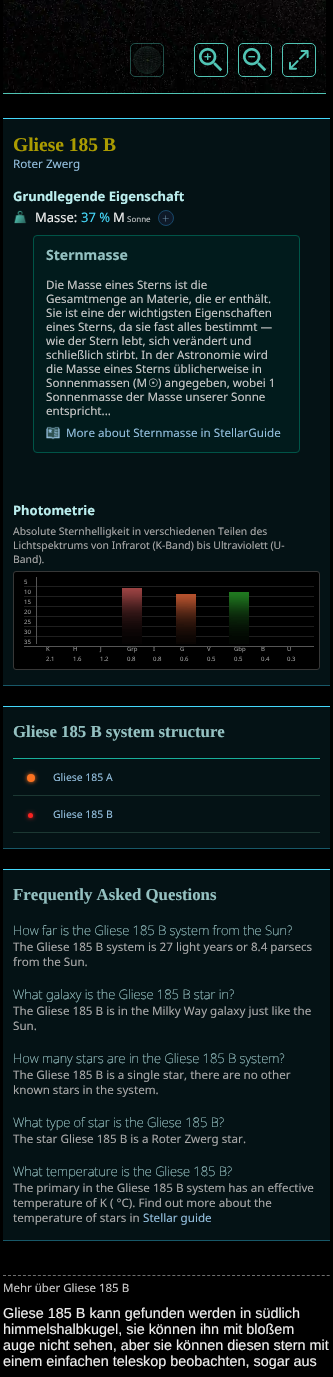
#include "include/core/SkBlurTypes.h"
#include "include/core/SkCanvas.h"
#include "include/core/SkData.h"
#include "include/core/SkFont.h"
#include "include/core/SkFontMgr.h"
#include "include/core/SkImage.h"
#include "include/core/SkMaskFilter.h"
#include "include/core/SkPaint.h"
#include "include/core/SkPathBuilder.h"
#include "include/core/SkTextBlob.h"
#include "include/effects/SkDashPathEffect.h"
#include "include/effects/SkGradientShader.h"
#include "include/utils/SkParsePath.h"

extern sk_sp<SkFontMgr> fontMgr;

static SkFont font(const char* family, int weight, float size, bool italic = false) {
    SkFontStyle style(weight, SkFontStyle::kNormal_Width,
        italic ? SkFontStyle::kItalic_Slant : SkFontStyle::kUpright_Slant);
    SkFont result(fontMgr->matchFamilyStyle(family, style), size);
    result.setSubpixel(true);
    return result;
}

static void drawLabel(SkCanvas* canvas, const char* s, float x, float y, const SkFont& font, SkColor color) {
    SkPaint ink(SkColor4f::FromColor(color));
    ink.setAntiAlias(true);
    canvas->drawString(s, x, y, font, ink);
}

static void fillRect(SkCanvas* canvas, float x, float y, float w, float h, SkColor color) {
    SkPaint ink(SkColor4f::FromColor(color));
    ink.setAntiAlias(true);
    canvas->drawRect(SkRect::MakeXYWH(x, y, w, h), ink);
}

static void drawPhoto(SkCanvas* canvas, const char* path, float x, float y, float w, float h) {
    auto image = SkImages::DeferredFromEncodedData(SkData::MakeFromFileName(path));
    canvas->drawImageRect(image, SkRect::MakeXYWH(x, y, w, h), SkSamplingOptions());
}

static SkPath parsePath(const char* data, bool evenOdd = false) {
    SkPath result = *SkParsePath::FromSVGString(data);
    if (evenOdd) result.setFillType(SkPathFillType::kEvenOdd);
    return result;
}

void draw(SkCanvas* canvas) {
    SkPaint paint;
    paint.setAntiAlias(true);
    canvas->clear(0xFF000000);
    drawPhoto(canvas, "assets/img1.png", 3, 0, 323, 93);
    fillRect(canvas, 3, 93, 323, 1, 0xFF51C4B4);
    fillRect(canvas, 3, 119, 327, 566, 0xFF041215);
    fillRect(canvas, 3, 118, 327, 1, 0xFF45D8FB);
    fillRect(canvas, 3, 685, 327, 1, 0xFF185868);
    SkFont font1 = font("Liberation Serif", 700, 19.5f);
    drawLabel(canvas, "Gliese 185 B", 13, 151, font1, 0xFFAB9C01);
    SkFont font2 = font("Noto Sans", 400, 11.65f);
    drawLabel(canvas, "Roter Zwerg", 13, 168, font2, 0xFF93BFDE);
    SkFont font3 = font("Noto Sans", 700, 13);
    drawLabel(canvas, "Grundlegende Eigenschaft", 13, 201, font3, 0xFFBBEEEE);
    drawPhoto(canvas, "assets/img2.png", 14, 210, 13, 14);
    SkFont font4 = font("Noto Sans", 400, 13);
    drawLabel(canvas, "Masse:", 35, 222, font4, 0xFFEEEEEE);
    drawLabel(canvas, "37 %", 81, 222, font4, 0xFF45D8FB);
    drawLabel(canvas, "M", 113, 222, font4, 0xFFEEEEEE);
    SkFont font5 = font("Noto Sans", 400, 8);
    drawLabel(canvas, "Sonne", 127, 222, font5, 0xFFBFC2C3);
    paint.setColor(0xFF0E1928);
    canvas->drawCircle(166, 218, 7.5f, paint);
    paint.setStroke(true);
    paint.setStrokeWidth(1);
    paint.setColor(0xFF164668);
    canvas->drawCircle(166, 218, 7.5f, paint);
    SkFont font6 = font("Noto Sans", 100, 13);
    drawLabel(canvas, "+", 162, 223, font6, 0xFF93BFDE);
    paint.setStroke(false);
    paint.setColor(0xFF011B1C);
    canvas->drawRoundRect(SkRect::MakeXYWH(33.5f, 235.5f, 266, 217), 3.5f, 3.5f, paint);
    paint.setStroke(true);
    paint.setColor(0xFF005447);
    canvas->drawRoundRect(SkRect::MakeXYWH(33.5f, 235.5f, 266, 217), 3.5f, 3.5f, paint);
    SkFont font7 = font("Noto Sans", 700, 14);
    drawLabel(canvas, "Sternmasse", 46, 260, font7, 0xFF94C1C1);
    drawLabel(canvas, "Die Masse eines Sterns ist die", 46, 289, font2, 0xFFC9C9C9);
    drawLabel(canvas, "Gesamtmenge an Materie, die er enthält.", 46, 303, font2, 0xFFC9C9C9);
    drawLabel(canvas, "Sie ist eine der wichtigsten Eigenschaften", 46, 317, font2, 0xFFC9C9C9);
    drawLabel(canvas, "eines Sterns, da sie fast alles bestimmt —", 46, 331, font2, 0xFFC9C9C9);
    drawLabel(canvas, "wie der Stern lebt, sich verändert und", 46, 345, font2, 0xFFC9C9C9);
    drawLabel(canvas, "schließlich stirbt. In der Astronomie wird", 46, 359, font2, 0xFFC9C9C9);
    drawLabel(canvas, "die Masse eines Sterns üblicherweise in", 46, 373, font2, 0xFFC9C9C9);
    drawLabel(canvas, "Sonnenmassen (M", 46, 387, font2, 0xFFC9C9C9);
    SkFont font8 = font("DejaVu Sans", 400, 11.65f);
    drawLabel(canvas, "☉", 148, 387, font8, 0xFFC9C9C9);
    drawLabel(canvas, ") angegeben, wobei 1", 158, 387, font2, 0xFFC9C9C9);
    drawLabel(canvas, "Sonnenmasse der Masse unserer Sonne", 46, 401, font2, 0xFFC9C9C9);
    drawLabel(canvas, "entspricht...", 46, 415, font2, 0xFFC9C9C9);
    drawPhoto(canvas, "assets/img3.png", 46, 426, 14, 14);
    drawLabel(canvas, "More about Sternmasse in StellarGuide", 66, 437, font2, 0xFF93BFDE);
    drawLabel(canvas, "Photometrie", 13, 515, font3, 0xFFBBEEEE);
    SkFont font9 = font("Noto Sans", 400, 10.4f);
    drawLabel(canvas, "Absolute Sternhelligkeit in verschiedenen Teilen des", 13, 535, font9, 0xFFA8A8A8);
    drawLabel(canvas, "Lichtspektrums von Infrarot (K-Band) bis Ultraviolett (U-", 13, 549, font9, 0xFFA8A8A8);
    drawLabel(canvas, "Band).", 13, 563, font9, 0xFFA8A8A8);
    paint.setStroke(false);
    paint.setColor(0xFF000000);
    canvas->drawRoundRect(SkRect::MakeXYWH(13.5f, 571.5f, 306, 98), 2.5f, 2.5f, paint);
    paint.setStroke(true);
    paint.setColor(0xFF373737);
    canvas->drawRoundRect(SkRect::MakeXYWH(13.5f, 571.5f, 306, 98), 2.5f, 2.5f, paint);
    fillRect(canvas, 24, 586, 290, 1, 0xFF1F1F1F);
    SkFont font10 = font("Noto Sans", 400, 6);
    drawLabel(canvas, "5", 24, 584, font10, 0xFF999999);
    fillRect(canvas, 24, 596, 290, 1, 0xFF1F1F1F);
    drawLabel(canvas, "10", 24, 594, font10, 0xFF999999);
    fillRect(canvas, 24, 606, 290, 1, 0xFF1F1F1F);
    drawLabel(canvas, "15", 24, 604, font10, 0xFF999999);
    fillRect(canvas, 24, 616, 290, 1, 0xFF1F1F1F);
    drawLabel(canvas, "20", 24, 614, font10, 0xFF999999);
    fillRect(canvas, 24, 626, 290, 1, 0xFF1F1F1F);
    drawLabel(canvas, "25", 24, 624, font10, 0xFF999999);
    fillRect(canvas, 24, 636, 290, 1, 0xFF1F1F1F);
    drawLabel(canvas, "30", 24, 634, font10, 0xFF999999);
    drawLabel(canvas, "K", 46, 651, font10, 0xFF999999);
    drawLabel(canvas, "H", 73, 651, font10, 0xFF999999);
    drawLabel(canvas, "J", 100, 651, font10, 0xFF999999);
    drawLabel(canvas, "Grp", 127, 651, font10, 0xFF999999);
    drawLabel(canvas, "I", 153, 651, font10, 0xFF999999);
    drawLabel(canvas, "G", 180, 651, font10, 0xFF999999);
    drawLabel(canvas, "V", 207, 651, font10, 0xFF999999);
    drawLabel(canvas, "Gbp", 234, 651, font10, 0xFF999999);
    drawLabel(canvas, "B", 261, 651, font10, 0xFF999999);
    drawLabel(canvas, "U", 287, 651, font10, 0xFF999999);
    fillRect(canvas, 24, 646, 290, 1, 0xFF555555);
    drawLabel(canvas, "35", 24, 644, font10, 0xFF999999);
    fillRect(canvas, 36, 577, 1, 67, 0xFF555555);
    fillRect(canvas, 122, 588, 20, 56, 0xFFC05252);
    drawPhoto(canvas, "assets/img4.png", 122, 588, 20, 56);
    fillRect(canvas, 176, 594, 20, 50, 0xFFE16538);
    drawPhoto(canvas, "assets/img5.png", 176, 594, 20, 50);
    fillRect(canvas, 229, 592, 20, 52, 0xFF279727);
    drawPhoto(canvas, "assets/img6.png", 229, 592, 20, 52);
    drawLabel(canvas, "2.1", 46, 661, font10, 0xFF999999);
    drawLabel(canvas, "1.6", 73, 661, font10, 0xFF999999);
    drawLabel(canvas, "1.2", 100, 661, font10, 0xFF999999);
    drawLabel(canvas, "0.8", 127, 661, font10, 0xFF999999);
    drawLabel(canvas, "0.8", 153, 661, font10, 0xFF999999);
    drawLabel(canvas, "0.6", 180, 661, font10, 0xFF999999);
    drawLabel(canvas, "0.5", 207, 661, font10, 0xFF999999);
    drawLabel(canvas, "0.5", 234, 661, font10, 0xFF999999);
    drawLabel(canvas, "0.4", 261, 661, font10, 0xFF999999);
    drawLabel(canvas, "0.3", 287, 661, font10, 0xFF999999);
    fillRect(canvas, 3, 707, 327, 141, 0xFF041215);
    fillRect(canvas, 3, 706, 327, 1, 0xFF45D8FB);
    fillRect(canvas, 3, 848, 327, 1, 0xFF185868);
    SkFont font11 = font("Liberation Serif", 700, 16.8f);
    drawLabel(canvas, "Gliese 185 B system structure", 13, 737, font11, 0xFF94C1C1);
    fillRect(canvas, 13, 758, 307, 1, 0xFF19AF9B);
    fillRect(canvas, 13, 795, 307, 1, 0xFF1C3833);
    paint.setStroke(false);
    paint.setColor(0xFFFB7220);
    canvas->drawCircle(31, 778, 4, paint);
    paint.setMaskFilter(SkMaskFilter::MakeBlur(kNormal_SkBlurStyle, 2));
    canvas->drawRoundRect(SkRect::MakeXYWH(27, 774, 8, 8), 4, 4, paint);
    paint.setMaskFilter(nullptr);
    drawLabel(canvas, "Gliese 185 A", 53, 781, font9, 0xFF93BFDE);
    fillRect(canvas, 13, 832, 307, 1, 0xFF1C3833);
    paint.setColor(0xFFFB2220);
    canvas->drawCircle(30.5f, 815.5f, 2.5f, paint);
    paint.setMaskFilter(SkMaskFilter::MakeBlur(kNormal_SkBlurStyle, 2));
    canvas->drawRoundRect(SkRect::MakeXYWH(28, 813, 5, 5), 2.5f, 2.5f, paint);
    paint.setMaskFilter(nullptr);
    drawLabel(canvas, "Gliese 185 B", 53, 818, font9, 0xFF93BFDE);
    fillRect(canvas, 3, 870, 327, 370, 0xFF041215);
    fillRect(canvas, 3, 869, 327, 1, 0xFF45D8FB);
    fillRect(canvas, 3, 1240, 327, 1, 0xFF185868);
    drawLabel(canvas, "Frequently Asked Questions", 13, 900, font11, 0xFF94C1C1);
    drawLabel(canvas, "How far is the Gliese 185 B system from the Sun?", 13, 935, font6, 0xFFBBEEEE);
    drawLabel(canvas, "The Gliese 185 B system is 27 light years or 8.4 parsecs", 13, 951, font2, 0xFFA8A8A8);
    drawLabel(canvas, "from the Sun.", 13, 966, font2, 0xFFA8A8A8);
    drawLabel(canvas, "What galaxy is the Gliese 185 B star in?", 13, 999, font6, 0xFFBBEEEE);
    drawLabel(canvas, "The Gliese 185 B is in the Milky Way galaxy just like the", 13, 1015, font2, 0xFFA8A8A8);
    drawLabel(canvas, "Sun.", 13, 1030, font2, 0xFFA8A8A8);
    drawLabel(canvas, "How many stars are in the Gliese 185 B system?", 13, 1063, font6, 0xFFBBEEEE);
    drawLabel(canvas, "The Gliese 185 B is a single star, there are no other", 13, 1079, font2, 0xFFA8A8A8);
    drawLabel(canvas, "known stars in the system.", 13, 1094, font2, 0xFFA8A8A8);
    drawLabel(canvas, "What type of star is the Gliese 185 B?", 13, 1127, font6, 0xFFBBEEEE);
    drawLabel(canvas, "The star Gliese 185 B is a Roter Zwerg star.", 13, 1143, font2, 0xFFA8A8A8);
    drawLabel(canvas, "What temperature is the Gliese 185 B?", 13, 1176, font6, 0xFFBBEEEE);
    drawLabel(canvas, "The primary in the Gliese 185 B system has an effective", 13, 1192, font2, 0xFFA8A8A8);
    drawLabel(canvas, "temperature of K ( °C). Find out more about the", 13, 1207, font2, 0xFFA8A8A8);
    drawLabel(canvas, "temperature of stars in", 13, 1222, font2, 0xFFA8A8A8);
    drawLabel(canvas, "Stellar guide", 143, 1222, font2, 0xFF93BFDE);
    paint.setStroke(true);
    paint.setColor(0xFF6F6F6F);
    paint.setPathEffect(SkDashPathEffect::Make({{3, 1.98f}}, 0));
    canvas->drawPath(parsePath("M3 1275.5H330"), paint);
    paint.setPathEffect(nullptr);
    SkFont font12 = font("Noto Sans", 400, 11.5f);
    drawLabel(canvas, "Mehr über Gliese 185 B", 3, 1292, font12, 0xFFC9C9C9);
    SkFont font13 = font("Liberation Sans", 400, 14.4f);
    drawLabel(canvas, "Gliese 185 B kann gefunden werden in südlich", 3, 1318, font13, 0xFFEEEEEE);
    drawLabel(canvas, "himmelshalbkugel, sie können ihn mit bloßem", 3, 1334, font13, 0xFFEEEEEE);
    drawLabel(canvas, "auge nicht sehen, aber sie können diesen stern mit", 3, 1350, font13, 0xFFEEEEEE);
    drawLabel(canvas, "einem einfachen teleskop beobachten, sogar aus", 3, 1366, font13, 0xFFEEEEEE);
}
